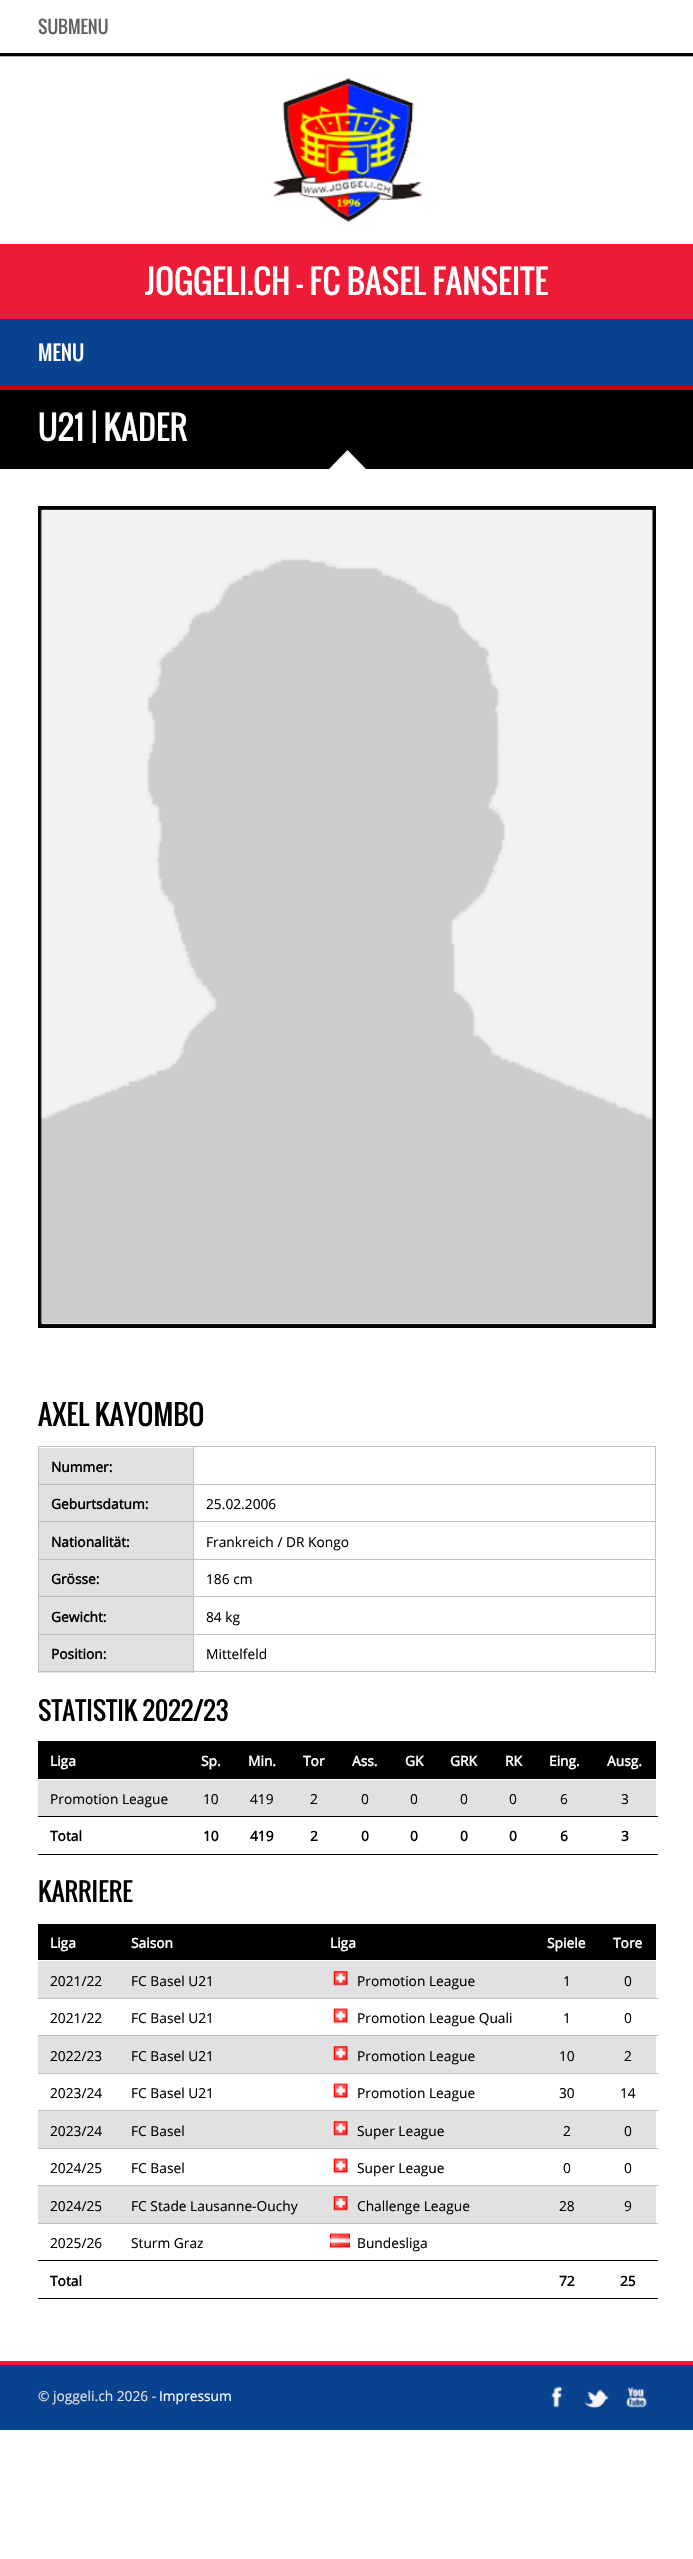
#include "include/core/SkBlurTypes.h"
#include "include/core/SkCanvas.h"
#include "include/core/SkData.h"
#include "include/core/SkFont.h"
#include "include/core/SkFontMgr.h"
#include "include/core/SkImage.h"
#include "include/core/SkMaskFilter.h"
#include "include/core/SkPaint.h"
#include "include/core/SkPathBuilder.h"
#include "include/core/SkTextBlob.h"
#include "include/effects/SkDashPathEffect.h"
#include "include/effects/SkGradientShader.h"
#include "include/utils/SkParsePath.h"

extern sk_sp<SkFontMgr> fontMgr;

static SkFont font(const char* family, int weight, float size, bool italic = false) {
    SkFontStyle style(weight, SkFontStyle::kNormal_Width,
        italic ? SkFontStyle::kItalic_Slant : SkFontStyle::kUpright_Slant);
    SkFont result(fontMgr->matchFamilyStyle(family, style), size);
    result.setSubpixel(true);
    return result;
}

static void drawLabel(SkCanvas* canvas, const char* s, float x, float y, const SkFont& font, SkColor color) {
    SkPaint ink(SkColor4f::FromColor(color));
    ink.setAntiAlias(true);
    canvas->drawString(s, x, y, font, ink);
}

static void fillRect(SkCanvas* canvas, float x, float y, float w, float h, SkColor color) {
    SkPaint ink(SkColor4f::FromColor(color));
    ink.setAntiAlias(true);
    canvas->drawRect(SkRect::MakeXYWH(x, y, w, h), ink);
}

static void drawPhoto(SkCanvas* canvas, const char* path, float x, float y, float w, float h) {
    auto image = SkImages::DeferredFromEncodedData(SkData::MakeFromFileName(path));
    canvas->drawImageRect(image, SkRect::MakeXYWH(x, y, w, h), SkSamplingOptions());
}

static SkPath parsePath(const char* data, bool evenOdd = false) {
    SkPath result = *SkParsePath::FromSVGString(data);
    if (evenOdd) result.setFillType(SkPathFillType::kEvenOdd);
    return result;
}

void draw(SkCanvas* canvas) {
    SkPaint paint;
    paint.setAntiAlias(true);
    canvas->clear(0xFFFFFFFF);
    fillRect(canvas, 0, 53, 693, 3, 0xFF000000);
    fillRect(canvas, 0, 56, 693, 1, 0xFFB3B3B3);
    SkFont font1 = font("Oswald", 400, 17.5f);
    drawLabel(canvas, "SUBMENU", 38, 34, font1, 0xFF616161);
    drawPhoto(canvas, "assets/img1.png", 272, 78, 151, 144);
    fillRect(canvas, 0, 244, 693, 75, 0xFFED1B35);
    SkFont font2 = font("Oswald", 400, 32.5f);
    drawLabel(canvas, "JOGGELI.CH - FC BASEL FANSEITE", 145, 295, font2, 0xFFFFFFFF);
    fillRect(canvas, 0, 319, 693, 67, 0xFF09428F);
    fillRect(canvas, 0, 386, 693, 4, 0xFFCC0000);
    SkFont font3 = font("Oswald", 400, 20);
    drawLabel(canvas, "MENU", 38, 361, font3, 0xFFFFFFFF);
    fillRect(canvas, 0, 390, 693, 79, 0xFF000000);
    drawLabel(canvas, "U21 | KADER", 38, 441, font2, 0xFFFFFFFF);
    paint.setColor(0xFFFFFFFF);
    canvas->drawPath(parsePath("M366 469H329L347.5 450Z"), paint);
    paint.setStroke(true);
    paint.setStrokeWidth(4);
    paint.setColor(0xFF000000);
    canvas->drawRect(SkRect::MakeXYWH(40, 508, 614, 818), paint);
    drawPhoto(canvas, "assets/img2.png", 40, 509, 613, 816);
    SkFont font4 = font("Oswald", 400, 27.5f);
    drawLabel(canvas, "AXEL KAYOMBO", 38, 1426, font4, 0xFF000000);
    fillRect(canvas, 39, 1448, 154, 36, 0xFFE1E1E1);
    fillRect(canvas, 193, 1446, 463, 1, 0xFFC0C0C0);
    fillRect(canvas, 193, 1484, 463, 1, 0xFFC0C0C0);
    fillRect(canvas, 39, 1485, 154, 74, 0xFFE1E1E1);
    fillRect(canvas, 193, 1521, 463, 1, 0xFFC0C0C0);
    fillRect(canvas, 193, 1559, 463, 1, 0xFFC0C0C0);
    fillRect(canvas, 39, 1560, 154, 74, 0xFFE1E1E1);
    fillRect(canvas, 193, 1596, 463, 1, 0xFFC0C0C0);
    fillRect(canvas, 193, 1634, 463, 1, 0xFFC0C0C0);
    fillRect(canvas, 655, 1634, 1, 39, 0xFFC0C0C0);
    fillRect(canvas, 193, 1671, 463, 1, 0xFFC0C0C0);
    fillRect(canvas, 193, 1634, 1, 39, 0xFFC0C0C0);
    fillRect(canvas, 38, 1634, 156, 1, 0xFFC0C0C0);
    fillRect(canvas, 193, 1596, 1, 39, 0xFFC0C0C0);
    fillRect(canvas, 38, 1596, 156, 1, 0xFFC0C0C0);
    fillRect(canvas, 193, 1559, 1, 39, 0xFFC0C0C0);
    fillRect(canvas, 38, 1559, 156, 1, 0xFFC0C0C0);
    fillRect(canvas, 193, 1521, 1, 39, 0xFFC0C0C0);
    fillRect(canvas, 38, 1521, 156, 1, 0xFFC0C0C0);
    fillRect(canvas, 193, 1484, 1, 39, 0xFFC0C0C0);
    fillRect(canvas, 38, 1484, 156, 1, 0xFFC0C0C0);
    fillRect(canvas, 193, 1446, 1, 39, 0xFFC0C0C0);
    fillRect(canvas, 38, 1446, 156, 1, 0xFFC0C0C0);
    fillRect(canvas, 39, 1635, 154, 38, 0xFFE1E1E1);
    fillRect(canvas, 38, 1671, 156, 1, 0xFFC0C0C0);
    fillRect(canvas, 38, 1634, 1, 39, 0xFFC0C0C0);
    fillRect(canvas, 38, 1596, 1, 39, 0xFFC0C0C0);
    fillRect(canvas, 38, 1559, 1, 39, 0xFFC0C0C0);
    fillRect(canvas, 38, 1521, 1, 39, 0xFFC0C0C0);
    fillRect(canvas, 38, 1484, 1, 39, 0xFFC0C0C0);
    fillRect(canvas, 38, 1446, 1, 39, 0xFFC0C0C0);
    SkFont font5 = font("Open Sans", 700, 13.75f);
    drawLabel(canvas, "Nummer:", 51, 1472, font5, 0xFF000000);
    fillRect(canvas, 655, 1596, 1, 39, 0xFFC0C0C0);
    fillRect(canvas, 655, 1559, 1, 39, 0xFFC0C0C0);
    fillRect(canvas, 655, 1521, 1, 39, 0xFFC0C0C0);
    fillRect(canvas, 655, 1484, 1, 39, 0xFFC0C0C0);
    fillRect(canvas, 655, 1446, 1, 39, 0xFFC0C0C0);
    drawLabel(canvas, "Geburtsdatum:", 51, 1509, font5, 0xFF000000);
    SkFont font6 = font("Open Sans", 400, 13.75f);
    drawLabel(canvas, "25.02.2006", 206, 1509, font6, 0xFF000000);
    drawLabel(canvas, "Nationalität:", 51, 1547, font5, 0xFF000000);
    drawLabel(canvas, "Frankreich / DR Kongo", 206, 1547, font6, 0xFF000000);
    drawLabel(canvas, "Grösse:", 51, 1584, font5, 0xFF000000);
    drawLabel(canvas, "186 cm", 206, 1584, font6, 0xFF000000);
    drawLabel(canvas, "Gewicht:", 51, 1622, font5, 0xFF000000);
    drawLabel(canvas, "84 kg", 206, 1622, font6, 0xFF000000);
    drawLabel(canvas, "Position:", 51, 1659, font5, 0xFF000000);
    drawLabel(canvas, "Mittelfeld", 206, 1659, font6, 0xFF000000);
    SkFont font7 = font("Oswald", 400, 25);
    drawLabel(canvas, "STATISTIK 2022/23", 38, 1721, font7, 0xFF000000);
    fillRect(canvas, 38, 1741, 618, 38, 0xFF000000);
    drawLabel(canvas, "Liga", 50, 1766, font5, 0xFFFFFFFF);
    drawLabel(canvas, "Sp.", 201, 1766, font5, 0xFFFFFFFF);
    drawLabel(canvas, "Min.", 248, 1766, font5, 0xFFFFFFFF);
    drawLabel(canvas, "Tor", 303, 1766, font5, 0xFFFFFFFF);
    drawLabel(canvas, "Ass.", 352, 1766, font5, 0xFFFFFFFF);
    drawLabel(canvas, "GK", 405, 1766, font5, 0xFFFFFFFF);
    drawLabel(canvas, "GRK", 450, 1766, font5, 0xFFFFFFFF);
    drawLabel(canvas, "RK", 505, 1766, font5, 0xFFFFFFFF);
    drawLabel(canvas, "Eing.", 549, 1766, font5, 0xFFFFFFFF);
    drawLabel(canvas, "Ausg.", 607, 1766, font5, 0xFFFFFFFF);
    fillRect(canvas, 38, 1780, 618, 36, 0xFFE1E1E1);
    drawLabel(canvas, "Promotion League", 50, 1804, font6, 0xFF000000);
    drawLabel(canvas, "10", 203, 1804, font6, 0xFF000000);
    drawLabel(canvas, "419", 250, 1804, font6, 0xFF000000);
    drawLabel(canvas, "2", 310, 1804, font6, 0xFF000000);
    drawLabel(canvas, "0", 361, 1804, font6, 0xFF000000);
    drawLabel(canvas, "0", 410, 1804, font6, 0xFF000000);
    drawLabel(canvas, "0", 460, 1804, font6, 0xFF000000);
    drawLabel(canvas, "0", 509, 1804, font6, 0xFF000000);
    drawLabel(canvas, "6", 560, 1804, font6, 0xFF000000);
    drawLabel(canvas, "3", 621, 1804, font6, 0xFF000000);
    drawLabel(canvas, "Total", 50, 1841, font5, 0xFF000000);
    drawLabel(canvas, "10", 203, 1841, font5, 0xFF000000);
    drawLabel(canvas, "419", 250, 1841, font5, 0xFF000000);
    drawLabel(canvas, "2", 310, 1841, font5, 0xFF000000);
    drawLabel(canvas, "0", 361, 1841, font5, 0xFF000000);
    drawLabel(canvas, "0", 410, 1841, font5, 0xFF000000);
    drawLabel(canvas, "0", 460, 1841, font5, 0xFF000000);
    drawLabel(canvas, "0", 509, 1841, font5, 0xFF000000);
    drawLabel(canvas, "6", 560, 1841, font5, 0xFF000000);
    fillRect(canvas, 38, 1816, 620, 1, 0xFF000000);
    fillRect(canvas, 38, 1854, 620, 1, 0xFF000000);
    drawLabel(canvas, "3", 621, 1841, font5, 0xFF000000);
    drawLabel(canvas, "KARRIERE", 38, 1902, font7, 0xFF000000);
    fillRect(canvas, 38, 1924, 618, 36, 0xFF000000);
    drawLabel(canvas, "Liga", 50, 1948, font5, 0xFFFFFFFF);
    drawLabel(canvas, "Saison", 131, 1948, font5, 0xFFFFFFFF);
    drawLabel(canvas, "Liga", 330, 1948, font5, 0xFFFFFFFF);
    drawLabel(canvas, "Spiele", 547, 1948, font5, 0xFFFFFFFF);
    drawLabel(canvas, "Tore", 613, 1948, font5, 0xFFFFFFFF);
    fillRect(canvas, 38, 1961, 618, 37, 0xFFE1E1E1);
    drawLabel(canvas, "2021/22", 50, 1986, font6, 0xFF000000);
    drawLabel(canvas, "FC Basel U21", 131, 1986, font6, 0xFF000000);
    drawPhoto(canvas, "assets/img3.png", 333, 1971, 15, 15);
    drawLabel(canvas, "Promotion League", 357, 1986, font6, 0xFF000000);
    drawLabel(canvas, "1", 563, 1986, font6, 0xFF000000);
    fillRect(canvas, 38, 1998, 620, 1, 0xFFC0C0C0);
    drawLabel(canvas, "0", 624, 1986, font6, 0xFF000000);
    drawLabel(canvas, "2021/22", 50, 2023, font6, 0xFF000000);
    drawLabel(canvas, "FC Basel U21", 131, 2023, font6, 0xFF000000);
    drawPhoto(canvas, "assets/img4.png", 333, 2008, 15, 16);
    drawLabel(canvas, "Promotion League Quali", 357, 2023, font6, 0xFF000000);
    drawLabel(canvas, "1", 563, 2023, font6, 0xFF000000);
    fillRect(canvas, 38, 2035, 620, 1, 0xFFC0C0C0);
    drawLabel(canvas, "0", 624, 2023, font6, 0xFF000000);
    fillRect(canvas, 38, 2036, 618, 37, 0xFFE1E1E1);
    drawLabel(canvas, "2022/23", 50, 2061, font6, 0xFF000000);
    drawLabel(canvas, "FC Basel U21", 131, 2061, font6, 0xFF000000);
    drawPhoto(canvas, "assets/img5.png", 333, 2046, 15, 15);
    drawLabel(canvas, "Promotion League", 357, 2061, font6, 0xFF000000);
    drawLabel(canvas, "10", 559, 2061, font6, 0xFF000000);
    fillRect(canvas, 38, 2073, 620, 1, 0xFFC0C0C0);
    drawLabel(canvas, "2", 624, 2061, font6, 0xFF000000);
    drawLabel(canvas, "2023/24", 50, 2098, font6, 0xFF000000);
    drawLabel(canvas, "FC Basel U21", 131, 2098, font6, 0xFF000000);
    drawPhoto(canvas, "assets/img4.png", 333, 2083, 15, 16);
    drawLabel(canvas, "Promotion League", 357, 2098, font6, 0xFF000000);
    drawLabel(canvas, "30", 559, 2098, font6, 0xFF000000);
    fillRect(canvas, 38, 2110, 620, 1, 0xFFC0C0C0);
    drawLabel(canvas, "14", 620, 2098, font6, 0xFF000000);
    fillRect(canvas, 38, 2111, 618, 37, 0xFFE1E1E1);
    drawLabel(canvas, "2023/24", 50, 2136, font6, 0xFF000000);
    drawLabel(canvas, "FC Basel", 131, 2136, font6, 0xFF000000);
    drawPhoto(canvas, "assets/img5.png", 333, 2121, 15, 15);
    drawLabel(canvas, "Super League", 357, 2136, font6, 0xFF000000);
    drawLabel(canvas, "2", 563, 2136, font6, 0xFF000000);
    fillRect(canvas, 38, 2148, 620, 1, 0xFFC0C0C0);
    drawLabel(canvas, "0", 624, 2136, font6, 0xFF000000);
    drawLabel(canvas, "2024/25", 50, 2173, font6, 0xFF000000);
    drawLabel(canvas, "FC Basel", 131, 2173, font6, 0xFF000000);
    drawPhoto(canvas, "assets/img4.png", 333, 2158, 15, 16);
    drawLabel(canvas, "Super League", 357, 2173, font6, 0xFF000000);
    drawLabel(canvas, "0", 563, 2173, font6, 0xFF000000);
    fillRect(canvas, 38, 2185, 620, 1, 0xFFC0C0C0);
    drawLabel(canvas, "0", 624, 2173, font6, 0xFF000000);
    fillRect(canvas, 38, 2186, 618, 37, 0xFFE1E1E1);
    drawLabel(canvas, "2024/25", 50, 2211, font6, 0xFF000000);
    drawLabel(canvas, "FC Stade Lausanne-Ouchy", 131, 2211, font6, 0xFF000000);
    drawPhoto(canvas, "assets/img5.png", 333, 2196, 15, 15);
    drawLabel(canvas, "Challenge League", 357, 2211, font6, 0xFF000000);
    drawLabel(canvas, "28", 559, 2211, font6, 0xFF000000);
    fillRect(canvas, 38, 2223, 620, 1, 0xFFC0C0C0);
    drawLabel(canvas, "9", 624, 2211, font6, 0xFF000000);
    drawLabel(canvas, "2025/26", 50, 2248, font6, 0xFF000000);
    drawLabel(canvas, "Sturm Graz", 131, 2248, font6, 0xFF000000);
    drawPhoto(canvas, "assets/img6.png", 330, 2233, 20, 16);
    drawLabel(canvas, "Bundesliga", 357, 2248, font6, 0xFF000000);
    drawLabel(canvas, "Total", 50, 2286, font5, 0xFF000000);
    drawLabel(canvas, "72", 559, 2286, font5, 0xFF000000);
    fillRect(canvas, 38, 2260, 620, 1, 0xFF000000);
    fillRect(canvas, 38, 2298, 620, 1, 0xFF000000);
    drawLabel(canvas, "25", 620, 2286, font5, 0xFF000000);
    fillRect(canvas, 0, 2365, 693, 65, 0xFF09428F);
    fillRect(canvas, 0, 2361, 693, 4, 0xFFED1B35);
    drawLabel(canvas, "© joggeli.ch 2026 -", 38, 2401, font6, 0xFFE1E1E1);
    drawLabel(canvas, "Impressum", 159, 2401, font6, 0xFFFFFFFF);
    drawPhoto(canvas, "assets/img7.png", 551, 2386, 12, 23);
    drawPhoto(canvas, "assets/img8.png", 584, 2389, 25, 20);
    drawPhoto(canvas, "assets/img9.png", 626, 2387, 22, 22);
}
